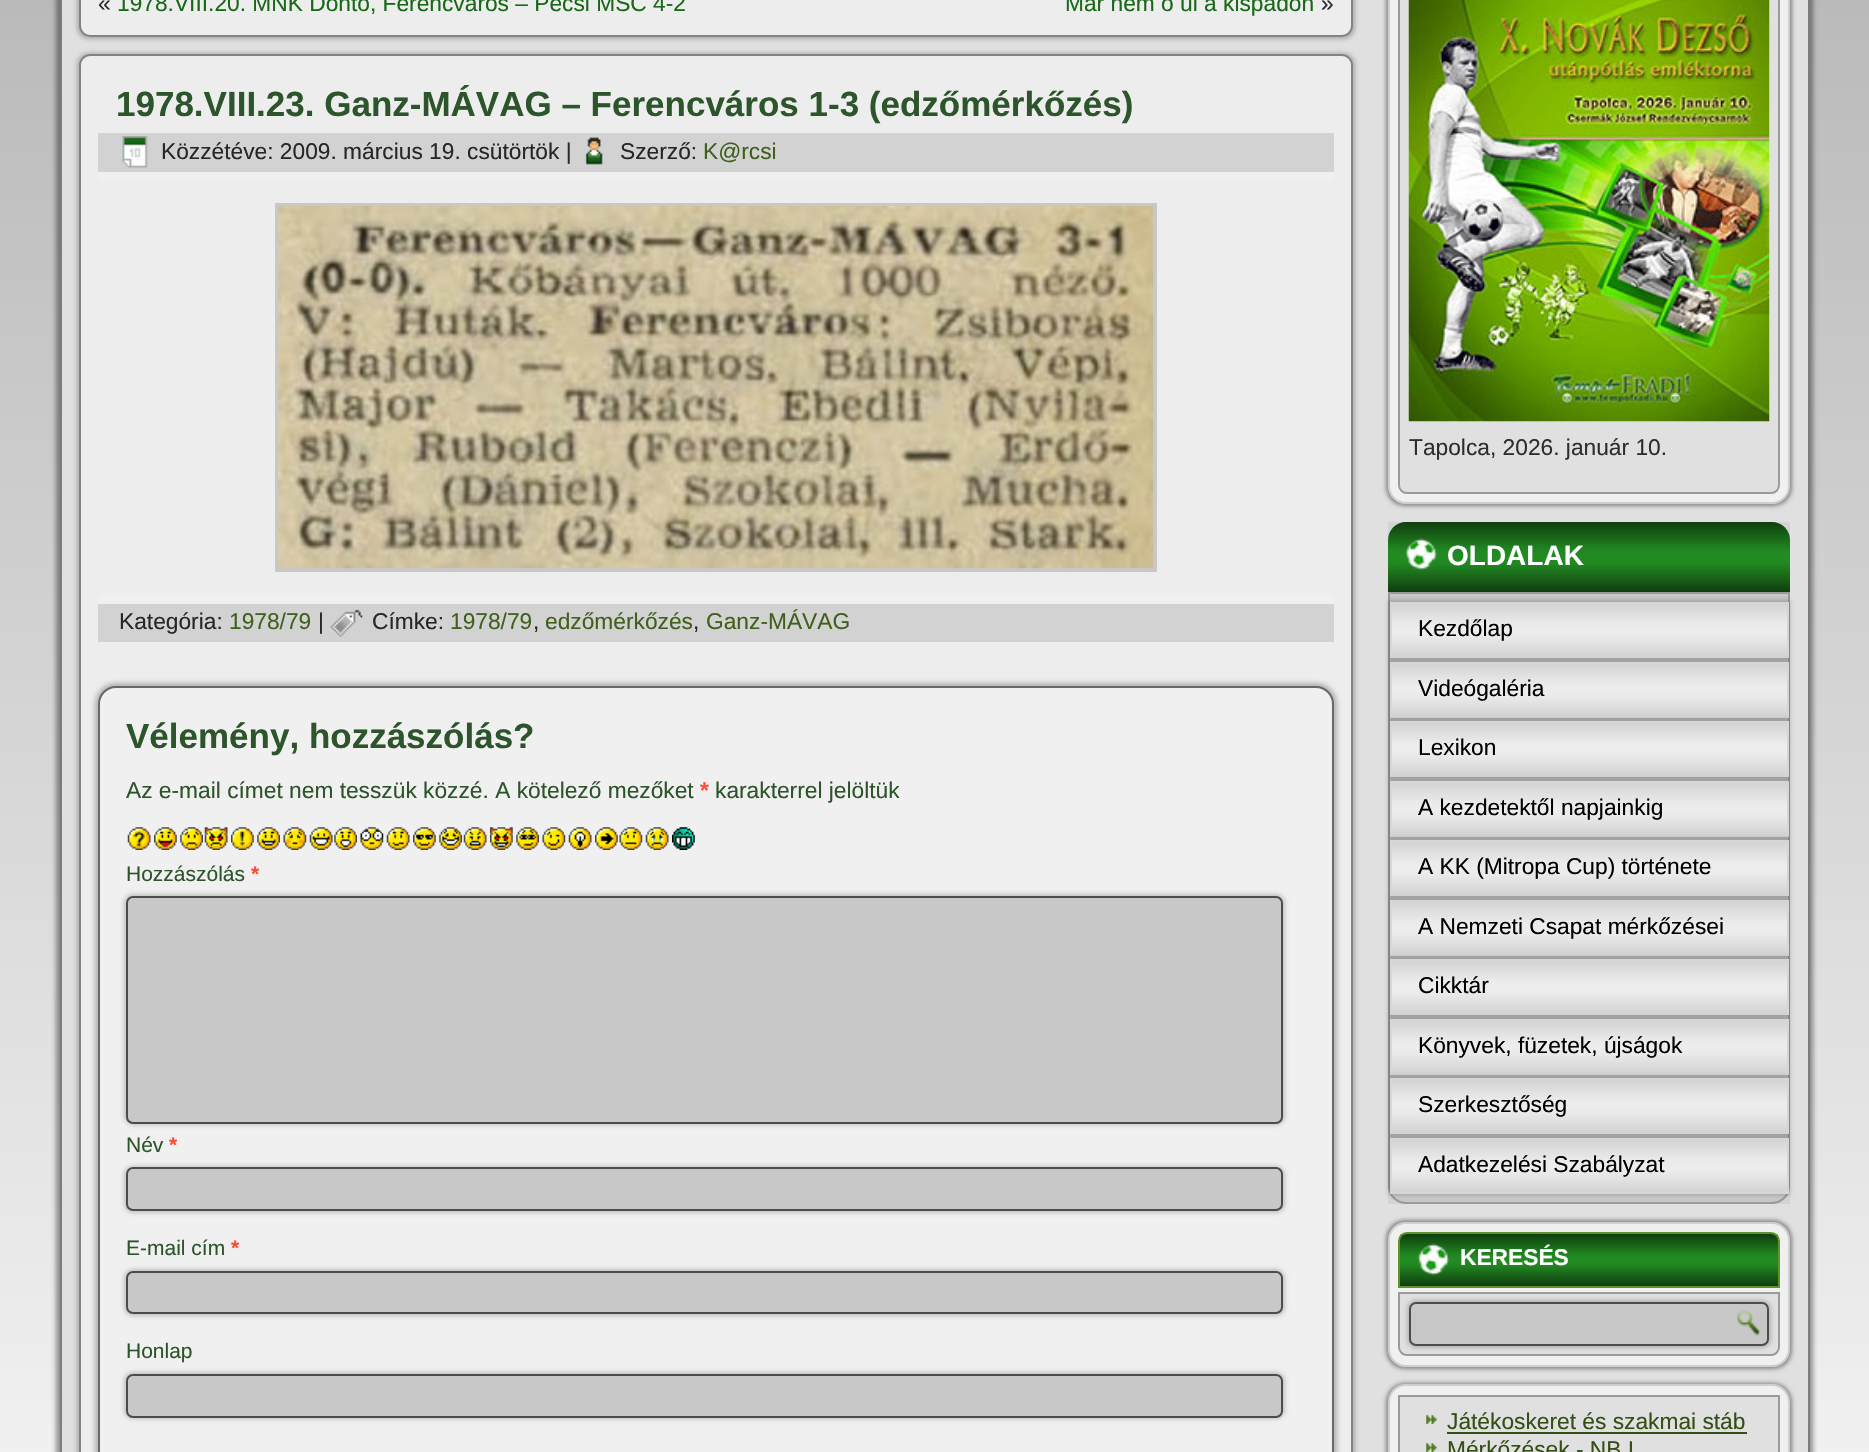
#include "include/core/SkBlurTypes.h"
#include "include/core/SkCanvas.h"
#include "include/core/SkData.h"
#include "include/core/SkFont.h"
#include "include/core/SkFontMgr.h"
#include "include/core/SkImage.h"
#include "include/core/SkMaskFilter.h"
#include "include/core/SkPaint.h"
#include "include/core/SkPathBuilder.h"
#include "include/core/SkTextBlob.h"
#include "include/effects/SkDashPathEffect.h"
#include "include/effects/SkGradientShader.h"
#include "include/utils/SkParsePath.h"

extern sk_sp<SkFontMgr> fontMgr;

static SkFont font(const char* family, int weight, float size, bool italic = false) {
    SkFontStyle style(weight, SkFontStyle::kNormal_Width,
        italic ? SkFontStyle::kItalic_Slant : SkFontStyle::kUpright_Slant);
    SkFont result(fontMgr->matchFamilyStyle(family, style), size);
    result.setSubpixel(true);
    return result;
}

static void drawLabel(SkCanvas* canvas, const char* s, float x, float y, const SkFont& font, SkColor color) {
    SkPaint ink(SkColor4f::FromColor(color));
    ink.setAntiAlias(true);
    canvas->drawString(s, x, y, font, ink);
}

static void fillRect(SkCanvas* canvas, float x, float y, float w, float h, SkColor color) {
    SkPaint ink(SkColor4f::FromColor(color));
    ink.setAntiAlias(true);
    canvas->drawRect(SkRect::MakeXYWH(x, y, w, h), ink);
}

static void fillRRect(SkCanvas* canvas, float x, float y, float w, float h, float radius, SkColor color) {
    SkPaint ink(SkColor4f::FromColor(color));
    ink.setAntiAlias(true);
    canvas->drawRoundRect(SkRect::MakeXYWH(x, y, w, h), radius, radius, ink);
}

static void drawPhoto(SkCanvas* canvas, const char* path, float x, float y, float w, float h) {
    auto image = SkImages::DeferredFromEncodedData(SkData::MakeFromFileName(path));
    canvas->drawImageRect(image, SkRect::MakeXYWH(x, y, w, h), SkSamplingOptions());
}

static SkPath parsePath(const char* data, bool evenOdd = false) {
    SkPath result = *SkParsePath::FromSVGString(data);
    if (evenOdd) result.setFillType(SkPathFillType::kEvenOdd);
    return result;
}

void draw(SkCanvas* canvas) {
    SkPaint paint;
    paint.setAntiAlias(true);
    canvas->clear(0xFFFFFFFF);
    {
        const SkColor colors[] = {0xFFBABABA, 0xFFFFFFFF};
        const float stops[] = {0, 1};
        const SkPoint ends[] = {{935, 0}, {935, 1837}};
        paint.setShader(SkGradientShader::MakeLinear(ends, colors, stops, 2, SkTileMode::kClamp));
        paint.setAlpha(255);
    }
    canvas->drawRect(SkRect::MakeXYWH(0, 0, 1869, 1452), paint);
    paint.setShader(nullptr);
    paint.setColor(0x66000000);
    paint.setMaskFilter(SkMaskFilter::MakeBlur(kNormal_SkBlurStyle, 2.5f));
    canvas->drawRoundRect(SkRect::MakeXYWH(56, -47, 1757, 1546), 39, 39, paint);
    paint.setMaskFilter(nullptr);
    paint.setColor(0xFFE0E0E0);
    canvas->drawRect(SkRect::MakeXYWH(61, -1, 1748, 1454), paint);
    paint.setStroke(true);
    paint.setStrokeWidth(2);
    paint.setColor(0xFF7F7B79);
    canvas->drawRect(SkRect::MakeXYWH(61, -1, 1748, 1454), paint);
    canvas->save();
    canvas->clipPath(parsePath("M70 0H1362V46H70ZM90-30H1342C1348-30 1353-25 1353-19V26C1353 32 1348 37 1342 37H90C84 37 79 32 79 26V-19C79-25 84-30 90-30Z", true), true);
    paint.setStroke(false);
    paint.setColor(0x3D000000);
    paint.setMaskFilter(SkMaskFilter::MakeBlur(kNormal_SkBlurStyle, 2));
    canvas->drawRoundRect(SkRect::MakeXYWH(77, -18, 1278, 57), 12, 12, paint);
    paint.setMaskFilter(nullptr);
    canvas->restore();
    fillRRect(canvas, 79, -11, 1274, 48, 11, 0xCCF0F0F0);
    paint.setStroke(true);
    paint.setColor(0xCC6A6665);
    canvas->drawRoundRect(SkRect::MakeXYWH(80, -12, 1272, 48), 10, 10, paint);
    SkFont font1 = font("Liberation Sans", 400, 22.75f);
    drawLabel(canvas, "«", 98, 11, font1, 0xFF2F2D2D);
    drawLabel(canvas, "1978.VIII.20. MNK Döntő, Ferencváros – Pécsi MSC 4-2", 117, 11, font1, 0xFF196818);
    drawLabel(canvas, "Már nem ő ül a kispadon", 1065, 11, font1, 0xFF196818);
    drawLabel(canvas, "»", 1321, 11, font1, 0xFF2F2D2D);
    canvas->save();
    canvas->clipPath(parsePath("M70 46H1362V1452H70ZM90 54H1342C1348 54 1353 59 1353 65V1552C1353 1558 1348 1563 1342 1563H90C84 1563 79 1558 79 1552V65C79 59 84 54 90 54Z", true), true);
    paint.setStroke(false);
    paint.setColor(0x3D000000);
    paint.setMaskFilter(SkMaskFilter::MakeBlur(kNormal_SkBlurStyle, 2));
    canvas->drawRoundRect(SkRect::MakeXYWH(77, 53, 1278, 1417), 12, 12, paint);
    paint.setMaskFilter(nullptr);
    canvas->restore();
    fillRRect(canvas, 79, 54, 1274, 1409, 11, 0xCCF0F0F0);
    paint.setStroke(true);
    paint.setColor(0xCC6A6665);
    canvas->drawRoundRect(SkRect::MakeXYWH(80, 55, 1272, 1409), 10, 10, paint);
    SkFont font2 = font("Liberation Sans", 700, 35);
    drawLabel(canvas, "1978.VIII.23. Ganz-MÁVAG – Ferencváros 1-3 (edzőmérkőzés)", 116, 116, font2, 0xFF2D552B);
    fillRect(canvas, 98, 133, 1236, 39, 0xFFD2D2D2);
    fillRect(canvas, 98, 172, 1236, 8, 0xFFF0F0F0);
    drawPhoto(canvas, "assets/img1.png", 122, 136, 26, 32);
    drawLabel(canvas, "Közzétéve: 2009. március 19. csütörtök |", 161, 159, font1, 0xFF282726);
    drawPhoto(canvas, "assets/img2.png", 585, 137, 18, 28);
    drawLabel(canvas, "Szerző:", 620, 159, font1, 0xFF282726);
    drawLabel(canvas, "K@rcsi", 703, 159, font1, 0xFF40601C);
    paint.setStrokeWidth(4);
    paint.setColor(0xFFC8C8C8);
    canvas->drawRect(SkRect::MakeXYWH(277, 205, 878, 365), paint);
    drawPhoto(canvas, "assets/img3.png", 278, 206, 876, 363);
    fillRect(canvas, 98, 604, 1236, 38, 0xFFD2D2D2);
    fillRect(canvas, 98, 595, 1236, 9, 0xFFF0F0F0);
    drawLabel(canvas, "Kategória:", 119, 629, font1, 0xFF282726);
    drawLabel(canvas, "1978/79", 229, 629, font1, 0xFF40601C);
    drawLabel(canvas, "|", 318, 629, font1, 0xFF282726);
    drawPhoto(canvas, "assets/img4.png", 330, 609, 33, 28);
    drawLabel(canvas, "Címke:", 372, 629, font1, 0xFF282726);
    drawLabel(canvas, "1978/79", 450, 629, font1, 0xFF40601C);
    drawLabel(canvas, ",", 533, 629, font1, 0xFF282726);
    drawLabel(canvas, "edzőmérkőzés", 545, 629, font1, 0xFF40601C);
    drawLabel(canvas, ",", 693, 629, font1, 0xFF282726);
    drawLabel(canvas, "Ganz-MÁVAG", 706, 629, font1, 0xFF40601C);
    paint.setStroke(false);
    paint.setColor(0x40000000);
    paint.setMaskFilter(SkMaskFilter::MakeBlur(kNormal_SkBlurStyle, 2.5f));
    canvas->drawRoundRect(SkRect::MakeXYWH(95, 683, 1242, 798), 21, 21, paint);
    paint.setMaskFilter(nullptr);
    paint.setColor(0xFFF0F0F0);
    canvas->drawRoundRect(SkRect::MakeXYWH(99, 687, 1234, 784), 17, 17, paint);
    paint.setStroke(true);
    paint.setStrokeWidth(2);
    paint.setColor(0xFF6A6665);
    canvas->drawRoundRect(SkRect::MakeXYWH(99, 687, 1234, 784), 17, 17, paint);
    drawLabel(canvas, "Vélemény, hozzászólás?", 126, 748, font2, 0xFF2D552B);
    drawLabel(canvas, "Az e-mail címet nem tesszük közzé. A kötelező mezőket", 126, 798, font1, 0xFF2D552B);
    SkFont font3 = font("Liberation Sans", 700, 22.75f);
    drawLabel(canvas, "*", 700, 798, font3, 0xFFFF4B33);
    drawLabel(canvas, "karakterrel jelöltük", 715, 798, font1, 0xFF2D552B);
    drawPhoto(canvas, "assets/img5.png", 127, 827, 24, 23);
    drawPhoto(canvas, "assets/img6.png", 154, 827, 23, 23);
    drawPhoto(canvas, "assets/img7.png", 180, 827, 23, 23);
    drawPhoto(canvas, "assets/img8.png", 204, 827, 24, 23);
    drawPhoto(canvas, "assets/img9.png", 231, 827, 23, 23);
    drawPhoto(canvas, "assets/img10.png", 257, 827, 23, 23);
    drawPhoto(canvas, "assets/img11.png", 283, 827, 24, 23);
    drawPhoto(canvas, "assets/img12.png", 309, 827, 24, 23);
    drawPhoto(canvas, "assets/img13.png", 334, 827, 23, 23);
    drawPhoto(canvas, "assets/img14.png", 360, 827, 24, 23);
    drawPhoto(canvas, "assets/img15.png", 386, 827, 24, 23);
    drawPhoto(canvas, "assets/img16.png", 413, 827, 23, 23);
    drawPhoto(canvas, "assets/img17.png", 439, 827, 23, 23);
    drawPhoto(canvas, "assets/img18.png", 463, 827, 24, 23);
    drawPhoto(canvas, "assets/img19.png", 490, 827, 23, 23);
    drawPhoto(canvas, "assets/img20.png", 516, 827, 23, 23);
    drawPhoto(canvas, "assets/img21.png", 542, 827, 24, 23);
    drawPhoto(canvas, "assets/img22.png", 568, 827, 24, 23);
    drawPhoto(canvas, "assets/img23.png", 595, 827, 23, 23);
    drawPhoto(canvas, "assets/img24.png", 619, 827, 24, 23);
    drawPhoto(canvas, "assets/img25.png", 645, 827, 24, 23);
    drawPhoto(canvas, "assets/img26.png", 672, 827, 23, 23);
    SkFont font4 = font("Liberation Sans", 400, 21);
    drawLabel(canvas, "Hozzászólás", 126, 881, font4, 0xFF2D552B);
    SkFont font5 = font("Liberation Sans", 700, 21);
    drawLabel(canvas, "*", 251, 881, font5, 0xFFFF4B33);
    paint.setStroke(false);
    paint.setColor(0x33000000);
    paint.setMaskFilter(SkMaskFilter::MakeBlur(kNormal_SkBlurStyle, 2));
    canvas->drawRoundRect(SkRect::MakeXYWH(124, 894, 1161, 231), 9, 9, paint);
    paint.setMaskFilter(nullptr);
    paint.setColor(0xFFC8C8C8);
    canvas->drawRoundRect(SkRect::MakeXYWH(127, 897, 1155, 226), 6, 6, paint);
    paint.setStroke(true);
    paint.setColor(0xFF4C4C4C);
    canvas->drawRoundRect(SkRect::MakeXYWH(127, 897, 1155, 226), 6, 6, paint);
    drawLabel(canvas, "Név", 126, 1152, font4, 0xFF2D552B);
    drawLabel(canvas, "*", 169, 1152, font5, 0xFFFF4B33);
    paint.setStroke(false);
    paint.setColor(0x33000000);
    paint.setMaskFilter(SkMaskFilter::MakeBlur(kNormal_SkBlurStyle, 2));
    canvas->drawRoundRect(SkRect::MakeXYWH(124, 1166, 1161, 47), 9, 9, paint);
    paint.setMaskFilter(nullptr);
    paint.setColor(0xFFC8C8C8);
    canvas->drawRoundRect(SkRect::MakeXYWH(127, 1168, 1155, 42), 6, 6, paint);
    paint.setStroke(true);
    paint.setColor(0xFF4C4C4C);
    canvas->drawRoundRect(SkRect::MakeXYWH(127, 1168, 1155, 42), 6, 6, paint);
    drawLabel(canvas, "E-mail cím", 126, 1255, font4, 0xFF2D552B);
    drawLabel(canvas, "*", 231, 1255, font5, 0xFFFF4B33);
    paint.setStroke(false);
    paint.setColor(0x33000000);
    paint.setMaskFilter(SkMaskFilter::MakeBlur(kNormal_SkBlurStyle, 2));
    canvas->drawRoundRect(SkRect::MakeXYWH(124, 1269, 1161, 47), 9, 9, paint);
    paint.setMaskFilter(nullptr);
    paint.setColor(0xFFC8C8C8);
    canvas->drawRoundRect(SkRect::MakeXYWH(127, 1272, 1155, 41), 6, 6, paint);
    paint.setStroke(true);
    paint.setColor(0xFF4C4C4C);
    canvas->drawRoundRect(SkRect::MakeXYWH(127, 1272, 1155, 41), 6, 6, paint);
    drawLabel(canvas, "Honlap", 126, 1358, font4, 0xFF2D552B);
    paint.setStroke(false);
    paint.setColor(0x33000000);
    paint.setMaskFilter(SkMaskFilter::MakeBlur(kNormal_SkBlurStyle, 2));
    canvas->drawRoundRect(SkRect::MakeXYWH(124, 1372, 1161, 47), 9, 9, paint);
    paint.setMaskFilter(nullptr);
    paint.setColor(0xFFC8C8C8);
    canvas->drawRoundRect(SkRect::MakeXYWH(127, 1375, 1155, 42), 6, 6, paint);
    paint.setStroke(true);
    paint.setColor(0xFF4C4C4C);
    canvas->drawRoundRect(SkRect::MakeXYWH(127, 1375, 1155, 42), 6, 6, paint);
    paint.setStroke(false);
    paint.setColor(0x66000000);
    paint.setMaskFilter(SkMaskFilter::MakeBlur(kNormal_SkBlurStyle, 2));
    canvas->drawRoundRect(SkRect::MakeXYWH(1386, -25, 406, 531), 19, 19, paint);
    paint.setMaskFilter(nullptr);
    fillRRect(canvas, 1388, -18, 402, 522, 18, 0xFFF0F0F0);
    paint.setStroke(true);
    paint.setColor(0x334C4C4C);
    canvas->drawRoundRect(SkRect::MakeXYWH(1389, -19, 400, 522), 17, 17, paint);
    paint.setStroke(false);
    paint.setColor(0xFFE0E0E0);
    canvas->drawPath(parsePath("M1399-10H1779V485C1779 489.5 1775.5 493 1771 493H1407C1402.5 493 1399 489.5 1399 485Z"), paint);
    paint.setStroke(true);
    paint.setColor(0xFF9A9A9A);
    canvas->drawPath(parsePath("M1399-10H1779V485C1779 489.5 1775.5 493 1771 493H1407C1402.5 493 1399 489.5 1399 485Z"), paint);
    drawPhoto(canvas, "assets/img27.png", 1408, 0, 362, 422);
    drawLabel(canvas, "Tapolca, 2026. január 10.", 1409, 455, font1, 0xFF2F2D2D);
    fillRect(canvas, 1388, 522, 402, 682, 0xFFD2D5D5);
    paint.setStroke(false);
    {
        const SkColor colors[] = {0xFF0F3E0F, 0xFF218721, 0xFF228C22, 0xFF218721, 0xFF0F3E0F};
        const float stops[] = {0, 0.4f, 0.5f, 0.6f, 1};
        const SkPoint ends[] = {{1589, 522}, {1589, 592}};
        paint.setShader(SkGradientShader::MakeLinear(ends, colors, stops, 5, SkTileMode::kClamp));
        paint.setAlpha(255);
    }
    canvas->drawPath(parsePath("M1406 522H1772C1782 522 1790 530 1790 540V592H1388V540C1388 530 1396 522 1406 522Z"), paint);
    drawPhoto(canvas, "assets/img28.png", 1405, 538, 32, 32);
    SkFont font6 = font("Liberation Sans", 700, 28);
    drawLabel(canvas, "OLDALAK", 1447, 565, font6, 0xFFFFFFFF);
    paint.setShader(nullptr);
    paint.setColor(0xFFC8C8C8);
    canvas->drawPath(parsePath("M1389 593H1789V1186C1789 1195.5 1781.5 1203 1772 1203H1406C1396.5 1203 1389 1195.5 1389 1186Z"), paint);
    paint.setStroke(true);
    paint.setColor(0xFF9A9A9A);
    canvas->drawPath(parsePath("M1389 593H1789V1186C1789 1195.5 1781.5 1203 1772 1203H1406C1396.5 1203 1389 1195.5 1389 1186Z"), paint);
    paint.setStroke(false);
    paint.setColor(0x33000000);
    paint.setMaskFilter(SkMaskFilter::MakeBlur(kNormal_SkBlurStyle, 2));
    canvas->drawRect(SkRect::MakeXYWH(1388, 600, 402, 60), paint);
    paint.setMaskFilter(nullptr);
    {
        const SkColor colors[] = {0xFFD1D1D1, 0xFFEBEBEB, 0xFFEDEDED, 0xFFEBEBEB, 0xFFD1D1D1};
        const float stops[] = {0, 0.4f, 0.5f, 0.6f, 1};
        const SkPoint ends[] = {{1589, 602}, {1589, 658}};
        paint.setShader(SkGradientShader::MakeLinear(ends, colors, stops, 5, SkTileMode::kClamp));
        paint.setAlpha(255);
    }
    canvas->drawRect(SkRect::MakeXYWH(1392, 604, 395, 52), paint);
    paint.setStroke(true);
    paint.setShader(nullptr);
    paint.setColor(0xFFD5D7D4);
    canvas->drawRect(SkRect::MakeXYWH(1391, 603, 397, 54), paint);
    drawLabel(canvas, "Kezdőlap", 1418, 636, font1, 0xFF000000);
    paint.setStroke(false);
    paint.setColor(0x33000000);
    paint.setMaskFilter(SkMaskFilter::MakeBlur(kNormal_SkBlurStyle, 2));
    canvas->drawRect(SkRect::MakeXYWH(1388, 660, 402, 59), paint);
    paint.setMaskFilter(nullptr);
    {
        const SkColor colors[] = {0xFFD1D1D1, 0xFFEBEBEB, 0xFFEDEDED, 0xFFEBEBEB, 0xFFD1D1D1};
        const float stops[] = {0, 0.4f, 0.5f, 0.6f, 1};
        const SkPoint ends[] = {{1589, 662}, {1589, 718}};
        paint.setShader(SkGradientShader::MakeLinear(ends, colors, stops, 5, SkTileMode::kClamp));
        paint.setAlpha(255);
    }
    canvas->drawRect(SkRect::MakeXYWH(1392, 664, 395, 52), paint);
    paint.setStroke(true);
    paint.setShader(nullptr);
    paint.setColor(0xFFD5D7D4);
    canvas->drawRect(SkRect::MakeXYWH(1391, 663, 397, 54), paint);
    drawLabel(canvas, "Videógaléria", 1418, 696, font1, 0xFF000000);
    paint.setStroke(false);
    paint.setColor(0x33000000);
    paint.setMaskFilter(SkMaskFilter::MakeBlur(kNormal_SkBlurStyle, 2));
    canvas->drawRect(SkRect::MakeXYWH(1388, 719, 402, 60), paint);
    paint.setMaskFilter(nullptr);
    {
        const SkColor colors[] = {0xFFD1D1D1, 0xFFEBEBEB, 0xFFEDEDED, 0xFFEBEBEB, 0xFFD1D1D1};
        const float stops[] = {0, 0.4f, 0.5f, 0.6f, 1};
        const SkPoint ends[] = {{1589, 721}, {1589, 777}};
        paint.setShader(SkGradientShader::MakeLinear(ends, colors, stops, 5, SkTileMode::kClamp));
        paint.setAlpha(255);
    }
    canvas->drawRect(SkRect::MakeXYWH(1392, 723, 395, 52), paint);
    paint.setStroke(true);
    paint.setShader(nullptr);
    paint.setColor(0xFFD5D7D4);
    canvas->drawRect(SkRect::MakeXYWH(1391, 722, 397, 54), paint);
    drawLabel(canvas, "Lexikon", 1418, 755, font1, 0xFF000000);
    paint.setStroke(false);
    paint.setColor(0x33000000);
    paint.setMaskFilter(SkMaskFilter::MakeBlur(kNormal_SkBlurStyle, 2));
    canvas->drawRect(SkRect::MakeXYWH(1388, 779, 402, 59), paint);
    paint.setMaskFilter(nullptr);
    {
        const SkColor colors[] = {0xFFD1D1D1, 0xFFEBEBEB, 0xFFEDEDED, 0xFFEBEBEB, 0xFFD1D1D1};
        const float stops[] = {0, 0.4f, 0.5f, 0.6f, 1};
        const SkPoint ends[] = {{1589, 781}, {1589, 837}};
        paint.setShader(SkGradientShader::MakeLinear(ends, colors, stops, 5, SkTileMode::kClamp));
        paint.setAlpha(255);
    }
    canvas->drawRect(SkRect::MakeXYWH(1392, 783, 395, 52), paint);
    paint.setStroke(true);
    paint.setShader(nullptr);
    paint.setColor(0xFFD5D7D4);
    canvas->drawRect(SkRect::MakeXYWH(1391, 782, 397, 54), paint);
    drawLabel(canvas, "A kezdetektől napjainkig", 1418, 815, font1, 0xFF000000);
    paint.setStroke(false);
    paint.setColor(0x33000000);
    paint.setMaskFilter(SkMaskFilter::MakeBlur(kNormal_SkBlurStyle, 2));
    canvas->drawRect(SkRect::MakeXYWH(1388, 838, 402, 60), paint);
    paint.setMaskFilter(nullptr);
    {
        const SkColor colors[] = {0xFFD1D1D1, 0xFFEBEBEB, 0xFFEDEDED, 0xFFEBEBEB, 0xFFD1D1D1};
        const float stops[] = {0, 0.4f, 0.5f, 0.6f, 1};
        const SkPoint ends[] = {{1589, 840}, {1589, 896}};
        paint.setShader(SkGradientShader::MakeLinear(ends, colors, stops, 5, SkTileMode::kClamp));
        paint.setAlpha(255);
    }
    canvas->drawRect(SkRect::MakeXYWH(1392, 842, 395, 52), paint);
    paint.setStroke(true);
    paint.setShader(nullptr);
    paint.setColor(0xFFD5D7D4);
    canvas->drawRect(SkRect::MakeXYWH(1391, 841, 397, 54), paint);
    drawLabel(canvas, "A KK (Mitropa Cup) története", 1418, 874, font1, 0xFF000000);
    paint.setStroke(false);
    paint.setColor(0x33000000);
    paint.setMaskFilter(SkMaskFilter::MakeBlur(kNormal_SkBlurStyle, 2));
    canvas->drawRect(SkRect::MakeXYWH(1388, 898, 402, 59), paint);
    paint.setMaskFilter(nullptr);
    {
        const SkColor colors[] = {0xFFD1D1D1, 0xFFEBEBEB, 0xFFEDEDED, 0xFFEBEBEB, 0xFFD1D1D1};
        const float stops[] = {0, 0.4f, 0.5f, 0.6f, 1};
        const SkPoint ends[] = {{1589, 900}, {1589, 956}};
        paint.setShader(SkGradientShader::MakeLinear(ends, colors, stops, 5, SkTileMode::kClamp));
        paint.setAlpha(255);
    }
    canvas->drawRect(SkRect::MakeXYWH(1392, 902, 395, 52), paint);
    paint.setStroke(true);
    paint.setShader(nullptr);
    paint.setColor(0xFFD5D7D4);
    canvas->drawRect(SkRect::MakeXYWH(1391, 901, 397, 54), paint);
    drawLabel(canvas, "A Nemzeti Csapat mérkőzései", 1418, 934, font1, 0xFF000000);
    paint.setStroke(false);
    paint.setColor(0x33000000);
    paint.setMaskFilter(SkMaskFilter::MakeBlur(kNormal_SkBlurStyle, 2));
    canvas->drawRect(SkRect::MakeXYWH(1388, 957, 402, 60), paint);
    paint.setMaskFilter(nullptr);
    {
        const SkColor colors[] = {0xFFD1D1D1, 0xFFEBEBEB, 0xFFEDEDED, 0xFFEBEBEB, 0xFFD1D1D1};
        const float stops[] = {0, 0.4f, 0.5f, 0.6f, 1};
        const SkPoint ends[] = {{1589, 959}, {1589, 1015}};
        paint.setShader(SkGradientShader::MakeLinear(ends, colors, stops, 5, SkTileMode::kClamp));
        paint.setAlpha(255);
    }
    canvas->drawRect(SkRect::MakeXYWH(1392, 961, 395, 52), paint);
    paint.setStroke(true);
    paint.setShader(nullptr);
    paint.setColor(0xFFD5D7D4);
    canvas->drawRect(SkRect::MakeXYWH(1391, 960, 397, 54), paint);
    drawLabel(canvas, "Cikktár", 1418, 993, font1, 0xFF000000);
    paint.setStroke(false);
    paint.setColor(0x33000000);
    paint.setMaskFilter(SkMaskFilter::MakeBlur(kNormal_SkBlurStyle, 2));
    canvas->drawRect(SkRect::MakeXYWH(1388, 1017, 402, 59), paint);
    paint.setMaskFilter(nullptr);
    {
        const SkColor colors[] = {0xFFD1D1D1, 0xFFEBEBEB, 0xFFEDEDED, 0xFFEBEBEB, 0xFFD1D1D1};
        const float stops[] = {0, 0.4f, 0.5f, 0.6f, 1};
        const SkPoint ends[] = {{1589, 1019}, {1589, 1075}};
        paint.setShader(SkGradientShader::MakeLinear(ends, colors, stops, 5, SkTileMode::kClamp));
        paint.setAlpha(255);
    }
    canvas->drawRect(SkRect::MakeXYWH(1392, 1021, 395, 52), paint);
    paint.setStroke(true);
    paint.setShader(nullptr);
    paint.setColor(0xFFD5D7D4);
    canvas->drawRect(SkRect::MakeXYWH(1391, 1020, 397, 54), paint);
    drawLabel(canvas, "Könyvek, füzetek, újságok", 1418, 1053, font1, 0xFF000000);
    paint.setStroke(false);
    paint.setColor(0x33000000);
    paint.setMaskFilter(SkMaskFilter::MakeBlur(kNormal_SkBlurStyle, 2));
    canvas->drawRect(SkRect::MakeXYWH(1388, 1076, 402, 60), paint);
    paint.setMaskFilter(nullptr);
    {
        const SkColor colors[] = {0xFFD1D1D1, 0xFFEBEBEB, 0xFFEDEDED, 0xFFEBEBEB, 0xFFD1D1D1};
        const float stops[] = {0, 0.4f, 0.5f, 0.6f, 1};
        const SkPoint ends[] = {{1589, 1078}, {1589, 1134}};
        paint.setShader(SkGradientShader::MakeLinear(ends, colors, stops, 5, SkTileMode::kClamp));
        paint.setAlpha(255);
    }
    canvas->drawRect(SkRect::MakeXYWH(1392, 1080, 395, 52), paint);
    paint.setStroke(true);
    paint.setShader(nullptr);
    paint.setColor(0xFFD5D7D4);
    canvas->drawRect(SkRect::MakeXYWH(1391, 1079, 397, 54), paint);
    drawLabel(canvas, "Szerkesztőség", 1418, 1112, font1, 0xFF000000);
    paint.setStroke(false);
    paint.setColor(0x33000000);
    paint.setMaskFilter(SkMaskFilter::MakeBlur(kNormal_SkBlurStyle, 2));
    canvas->drawRect(SkRect::MakeXYWH(1388, 1136, 402, 59), paint);
    paint.setMaskFilter(nullptr);
    {
        const SkColor colors[] = {0xFFD1D1D1, 0xFFEBEBEB, 0xFFEDEDED, 0xFFEBEBEB, 0xFFD1D1D1};
        const float stops[] = {0, 0.4f, 0.5f, 0.6f, 1};
        const SkPoint ends[] = {{1589, 1138}, {1589, 1194}};
        paint.setShader(SkGradientShader::MakeLinear(ends, colors, stops, 5, SkTileMode::kClamp));
        paint.setAlpha(255);
    }
    canvas->drawRect(SkRect::MakeXYWH(1392, 1140, 395, 52), paint);
    paint.setStroke(true);
    paint.setShader(nullptr);
    paint.setColor(0xFFD5D7D4);
    canvas->drawRect(SkRect::MakeXYWH(1391, 1139, 397, 54), paint);
    drawLabel(canvas, "Adatkezelési Szabályzat", 1418, 1172, font1, 0xFF000000);
    paint.setStroke(false);
    paint.setColor(0x66000000);
    paint.setMaskFilter(SkMaskFilter::MakeBlur(kNormal_SkBlurStyle, 2));
    canvas->drawRoundRect(SkRect::MakeXYWH(1386, 1220, 406, 149), 19, 19, paint);
    paint.setMaskFilter(nullptr);
    fillRRect(canvas, 1388, 1222, 402, 145, 18, 0xFFF0F0F0);
    paint.setStroke(true);
    paint.setColor(0x334C4C4C);
    canvas->drawRoundRect(SkRect::MakeXYWH(1389, 1223, 400, 143), 17, 17, paint);
    canvas->save();
    canvas->clipPath(parsePath("M1407 1232H1771C1776 1232 1780 1236 1780 1241V1288H1398V1241C1398 1236 1402 1232 1407 1232Z"), true);
    paint.setStroke(false);
    {
        const SkColor colors[] = {0xFF0F3E0F, 0xFF218721, 0xFF228C22, 0xFF218721, 0xFF0F3E0F};
        const float stops[] = {0, 0.4f, 0.5f, 0.6f, 1};
        const SkPoint ends[] = {{1589, 1234}, {1589, 1286}};
        paint.setShader(SkGradientShader::MakeLinear(ends, colors, stops, 5, SkTileMode::kClamp));
        paint.setAlpha(255);
    }
    canvas->drawRect(SkRect::MakeXYWH(1400, 1234, 378, 52), paint);
    canvas->restore();
    paint.setStroke(true);
    paint.setShader(nullptr);
    paint.setColor(0xFF62922A);
    canvas->drawPath(parsePath("M1407 1233H1771C1775.5 1233 1779 1236.5 1779 1241V1287H1399V1241C1399 1236.5 1402.5 1233 1407 1233Z"), paint);
    drawPhoto(canvas, "assets/img29.png", 1417, 1243, 32, 33);
    drawLabel(canvas, "KERESÉS", 1460, 1265, font3, 0xFFFFFFFF);
    paint.setStroke(false);
    paint.setColor(0xFFE0E0E0);
    canvas->drawPath(parsePath("M1399 1293H1779V1347C1779 1351.5 1775.5 1355 1771 1355H1407C1402.5 1355 1399 1351.5 1399 1347Z"), paint);
    paint.setStroke(true);
    paint.setColor(0xFF9A9A9A);
    canvas->drawPath(parsePath("M1399 1293H1779V1347C1779 1351.5 1775.5 1355 1771 1355H1407C1402.5 1355 1399 1351.5 1399 1347Z"), paint);
    paint.setStroke(false);
    paint.setColor(0x33000000);
    paint.setMaskFilter(SkMaskFilter::MakeBlur(kNormal_SkBlurStyle, 2));
    canvas->drawRoundRect(SkRect::MakeXYWH(1407, 1300, 364, 48), 9, 9, paint);
    paint.setMaskFilter(nullptr);
    paint.setColor(0xFFC7C7C7);
    canvas->drawRoundRect(SkRect::MakeXYWH(1410, 1303, 358, 42), 6, 6, paint);
    paint.setStroke(true);
    paint.setColor(0xFF4C4C4C);
    canvas->drawRoundRect(SkRect::MakeXYWH(1410, 1303, 358, 42), 6, 6, paint);
    drawPhoto(canvas, "assets/img30.png", 1736, 1310, 25, 26);
    paint.setStroke(false);
    paint.setColor(0x66000000);
    paint.setMaskFilter(SkMaskFilter::MakeBlur(kNormal_SkBlurStyle, 2));
    canvas->drawRoundRect(SkRect::MakeXYWH(1386, 1383, 406, 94), 19, 19, paint);
    paint.setMaskFilter(nullptr);
    fillRRect(canvas, 1388, 1384, 402, 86, 18, 0xFFF0F0F0);
    paint.setStroke(true);
    paint.setColor(0x334C4C4C);
    canvas->drawRoundRect(SkRect::MakeXYWH(1389, 1385, 400, 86), 17, 17, paint);
    paint.setStroke(false);
    paint.setColor(0xFFE0E0E0);
    canvas->drawRect(SkRect::MakeXYWH(1399, 1396, 380, 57), paint);
    paint.setStroke(true);
    paint.setColor(0xFF9A9A9A);
    canvas->drawRect(SkRect::MakeXYWH(1399, 1396, 380, 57), paint);
    drawPhoto(canvas, "assets/img31.png", 1426, 1415, 11, 9);
    drawLabel(canvas, "Játékoskeret és szakmai stáb", 1447, 1429, font1, 0xFF344F16);
    fillRect(canvas, 1447, 1432, 300, 2, 0xFF344F16);
    drawPhoto(canvas, "assets/img31.png", 1426, 1443, 11, 9);
    drawLabel(canvas, "Mérkőzések - NB I", 1447, 1457, font1, 0xFF344F16);
}
